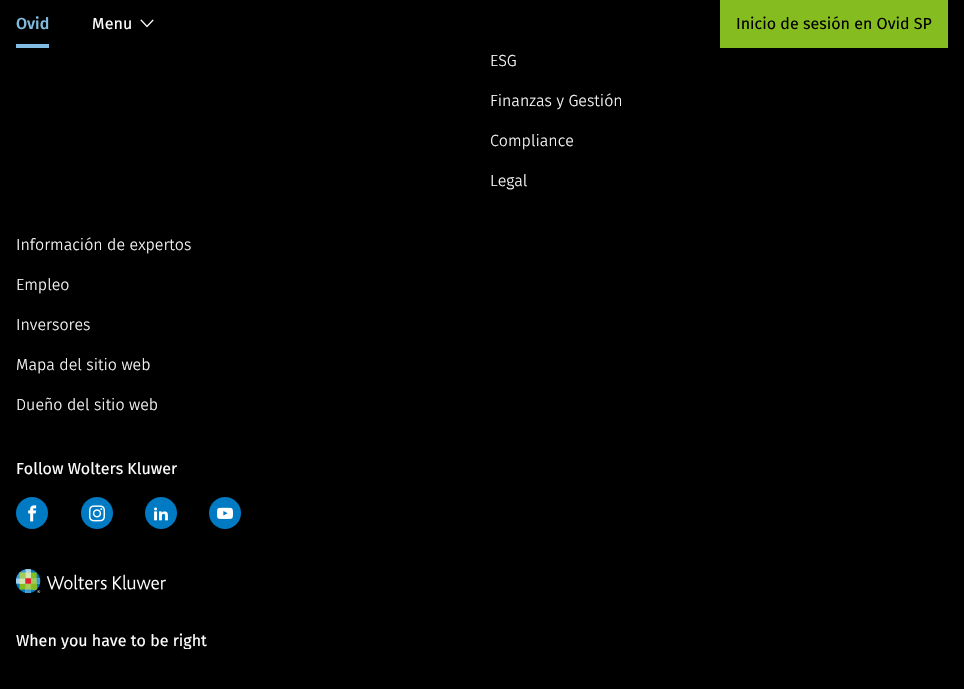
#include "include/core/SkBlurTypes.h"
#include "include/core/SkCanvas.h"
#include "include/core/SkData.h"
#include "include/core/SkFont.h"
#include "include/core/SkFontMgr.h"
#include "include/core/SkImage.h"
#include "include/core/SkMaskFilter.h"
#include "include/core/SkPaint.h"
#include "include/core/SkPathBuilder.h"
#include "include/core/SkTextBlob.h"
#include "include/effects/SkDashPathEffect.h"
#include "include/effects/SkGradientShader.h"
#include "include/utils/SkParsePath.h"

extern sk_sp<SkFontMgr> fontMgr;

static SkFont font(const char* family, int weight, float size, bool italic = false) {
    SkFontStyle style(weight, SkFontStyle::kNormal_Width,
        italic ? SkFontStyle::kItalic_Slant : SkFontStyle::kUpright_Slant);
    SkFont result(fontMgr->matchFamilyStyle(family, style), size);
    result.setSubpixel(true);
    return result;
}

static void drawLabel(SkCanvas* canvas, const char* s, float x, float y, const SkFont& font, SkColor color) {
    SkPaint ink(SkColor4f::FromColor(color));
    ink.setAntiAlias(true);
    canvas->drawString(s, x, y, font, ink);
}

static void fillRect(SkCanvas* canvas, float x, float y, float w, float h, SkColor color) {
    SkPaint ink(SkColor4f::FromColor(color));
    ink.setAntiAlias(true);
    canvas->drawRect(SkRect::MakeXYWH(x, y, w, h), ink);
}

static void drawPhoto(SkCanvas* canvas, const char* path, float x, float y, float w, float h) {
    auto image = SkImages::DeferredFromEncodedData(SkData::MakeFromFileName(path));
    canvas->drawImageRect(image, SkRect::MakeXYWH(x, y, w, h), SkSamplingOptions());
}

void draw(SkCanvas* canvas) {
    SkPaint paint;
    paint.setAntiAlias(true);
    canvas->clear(0xFF000000);
    SkFont font1 = font("Fira Sans", 500, 16);
    drawLabel(canvas, "Ovid", 16, 29, font1, 0xFF80BDE1);
    fillRect(canvas, 16, 44, 33, 4, 0xFF80BDE1);
    SkFont font2 = font("Fira Sans", 400, 16);
    drawLabel(canvas, "Menu", 92, 29, font2, 0xFFFFFFFF);
    drawPhoto(canvas, "assets/img1.png", 140, 19, 14, 9);
    fillRect(canvas, 720, 0, 228, 48, 0xFF85BC20);
    drawLabel(canvas, "Inicio de sesión en Ovid SP", 736, 29, font2, 0xFF000000);
    SkFont font3 = font("Fira Sans", 300, 16);
    drawLabel(canvas, "ESG", 490, 66, font3, 0xFFFFFFFF);
    drawLabel(canvas, "Finanzas y Gestión", 490, 106, font3, 0xFFFFFFFF);
    drawLabel(canvas, "Compliance", 490, 146, font3, 0xFFFFFFFF);
    drawLabel(canvas, "Legal", 490, 186, font3, 0xFFFFFFFF);
    drawLabel(canvas, "Información de expertos", 16, 250, font3, 0xFFFFFFFF);
    drawLabel(canvas, "Empleo", 16, 290, font3, 0xFFFFFFFF);
    drawLabel(canvas, "Inversores", 16, 330, font3, 0xFFFFFFFF);
    drawLabel(canvas, "Mapa del sitio web", 16, 370, font3, 0xFFFFFFFF);
    drawLabel(canvas, "Dueño del sitio web", 16, 410, font3, 0xFFFFFFFF);
    drawLabel(canvas, "Follow Wolters Kluwer", 16, 474, font2, 0xFFFFFFFF);
    paint.setColor(0xFF007AC3);
    canvas->drawCircle(32, 513, 16, paint);
    drawPhoto(canvas, "assets/img2.png", 28, 505, 9, 17);
    canvas->drawCircle(97, 513, 16, paint);
    drawPhoto(canvas, "assets/img3.png", 89, 505, 16, 17);
    canvas->drawCircle(161, 513, 16, paint);
    drawPhoto(canvas, "assets/img4.png", 154, 507, 14, 14);
    canvas->drawCircle(225, 513, 16, paint);
    drawPhoto(canvas, "assets/img5.png", 217, 507, 16, 12);
    drawPhoto(canvas, "assets/img6.png", 16, 569, 150, 24);
    drawLabel(canvas, "When you have to be right", 16, 646, font2, 0xFFFFFFFF);
    fillRect(canvas, 61, 649, 129, 1, 0xFF000000);
}
